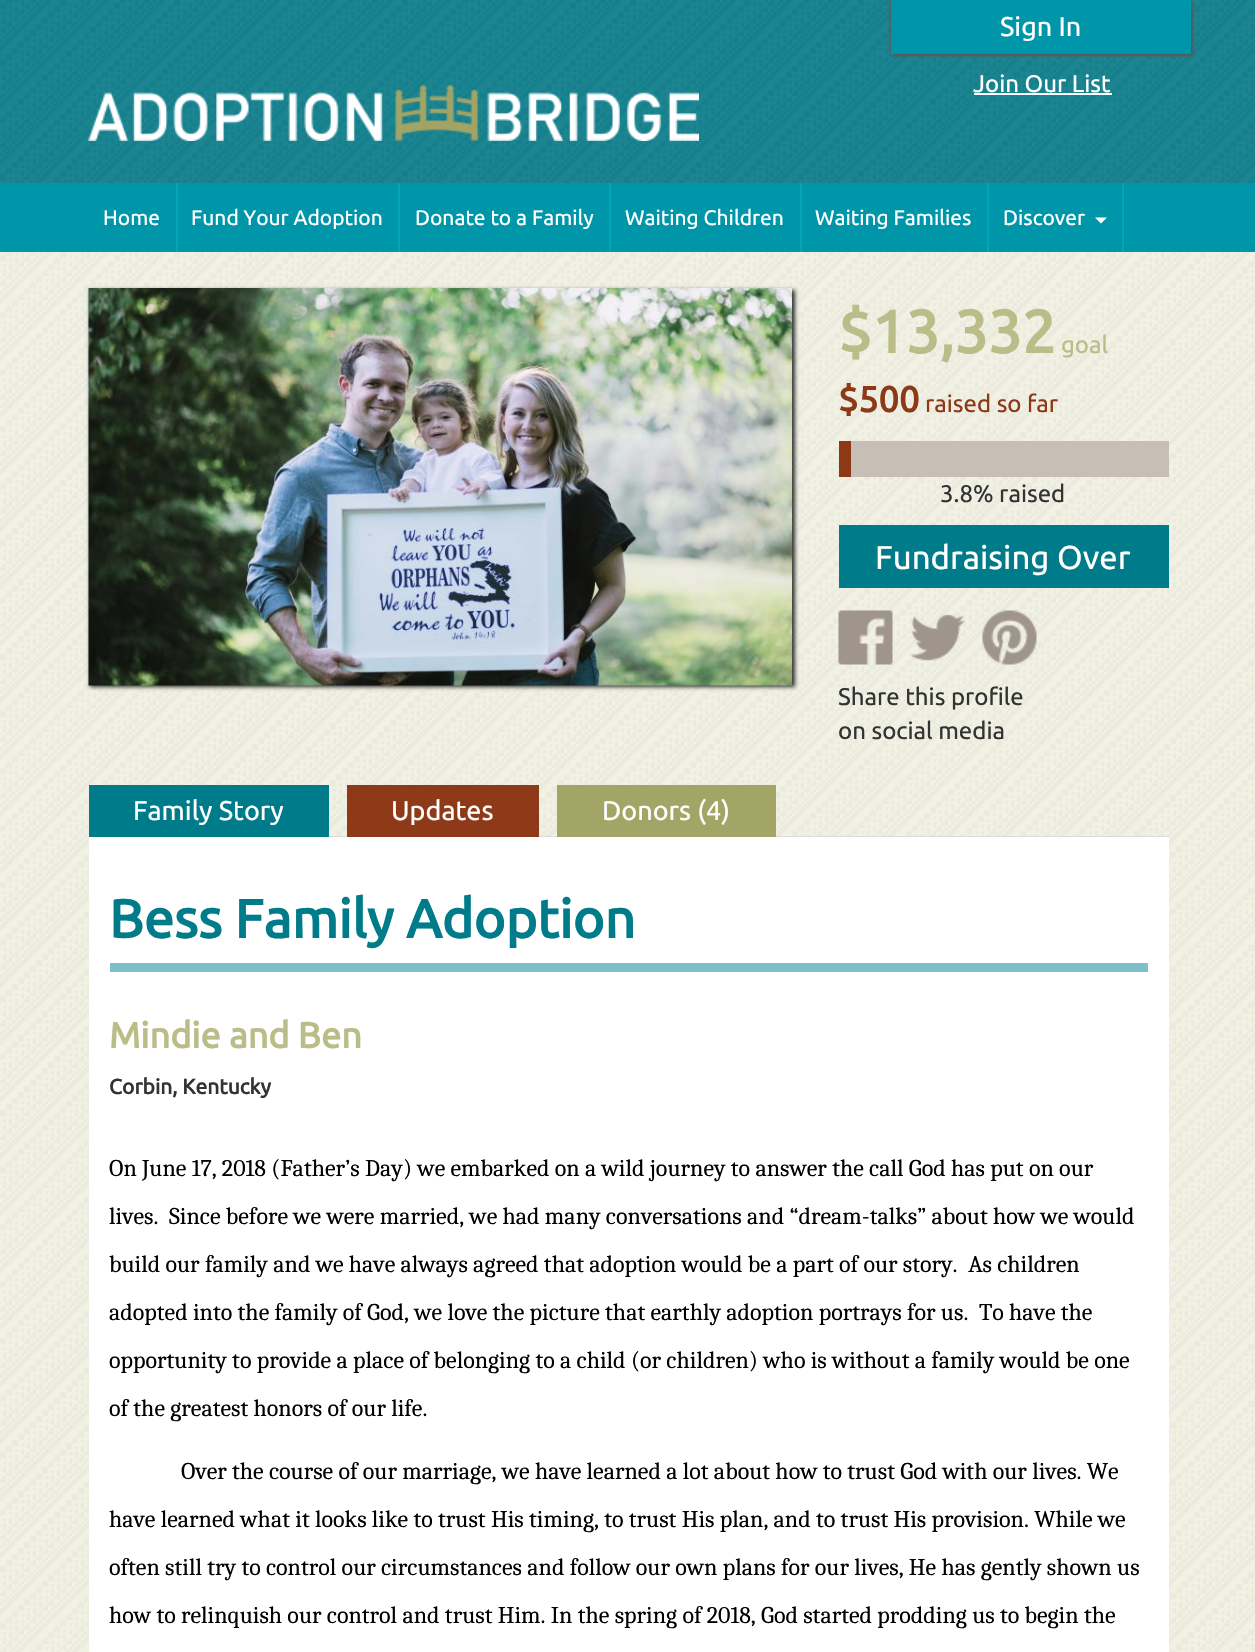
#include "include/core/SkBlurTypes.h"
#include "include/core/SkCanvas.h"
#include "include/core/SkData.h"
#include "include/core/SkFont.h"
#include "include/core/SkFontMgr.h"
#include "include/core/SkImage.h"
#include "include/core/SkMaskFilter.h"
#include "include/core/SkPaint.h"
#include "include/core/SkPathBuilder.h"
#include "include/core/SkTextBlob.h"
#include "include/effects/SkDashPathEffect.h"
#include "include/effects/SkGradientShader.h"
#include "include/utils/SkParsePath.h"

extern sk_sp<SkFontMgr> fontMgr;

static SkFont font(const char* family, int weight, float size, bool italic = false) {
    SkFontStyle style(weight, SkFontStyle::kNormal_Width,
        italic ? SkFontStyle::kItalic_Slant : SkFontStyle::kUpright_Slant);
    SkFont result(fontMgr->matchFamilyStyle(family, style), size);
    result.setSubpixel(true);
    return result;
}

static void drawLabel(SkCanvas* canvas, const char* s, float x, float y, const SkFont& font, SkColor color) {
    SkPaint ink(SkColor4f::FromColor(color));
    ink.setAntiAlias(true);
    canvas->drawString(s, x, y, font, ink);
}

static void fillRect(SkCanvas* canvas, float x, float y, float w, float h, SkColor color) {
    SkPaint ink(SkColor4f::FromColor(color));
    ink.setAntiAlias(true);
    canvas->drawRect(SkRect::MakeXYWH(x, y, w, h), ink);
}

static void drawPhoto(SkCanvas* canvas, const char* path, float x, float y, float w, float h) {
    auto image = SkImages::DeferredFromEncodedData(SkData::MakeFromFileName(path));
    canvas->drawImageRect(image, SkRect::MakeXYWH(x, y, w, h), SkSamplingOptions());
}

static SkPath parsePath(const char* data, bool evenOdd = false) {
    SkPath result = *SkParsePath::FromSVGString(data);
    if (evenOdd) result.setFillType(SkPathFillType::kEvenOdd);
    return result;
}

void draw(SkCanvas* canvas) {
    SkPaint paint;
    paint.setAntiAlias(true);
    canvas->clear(0xFFFFFFFF);
    drawPhoto(canvas, "assets/img1.png", 0, 0, 1255, 183);
    paint.setColor(0xFF555555);
    paint.setMaskFilter(SkMaskFilter::MakeBlur(kNormal_SkBlurStyle, 1.5f));
    canvas->drawRect(SkRect::MakeXYWH(890, -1, 300, 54), paint);
    paint.setMaskFilter(nullptr);
    paint.setMaskFilter(SkMaskFilter::MakeBlur(kNormal_SkBlurStyle, 1.5f));
    canvas->drawRect(SkRect::MakeXYWH(893, 2, 300, 54), paint);
    paint.setMaskFilter(nullptr);
    fillRect(canvas, 891, 0, 300, 54, 0xFF0096A9);
    SkFont font1 = font("Ubuntu", 400, 27);
    drawLabel(canvas, "Sign In", 1000, 36, font1, 0xFFFFFFFF);
    drawPhoto(canvas, "assets/img2.png", 88, 85, 611, 56);
    SkFont font2 = font("Ubuntu", 400, 24);
    drawLabel(canvas, "Join Our List", 973, 92, font2, 0xFFFFFFFF);
    fillRect(canvas, 974, 93, 138, 2, 0xFFFFFFFF);
    fillRect(canvas, 0, 183, 1255, 69, 0xFF0096A9);
    fillRect(canvas, 176, 183, 2, 69, 0xFF01A4BA);
    SkFont font3 = font("Ubuntu", 400, 21);
    drawLabel(canvas, "Home", 103, 225, font3, 0xFFFFFFFF);
    fillRect(canvas, 398, 183, 2, 69, 0xFF01A4BA);
    drawLabel(canvas, "Fund Your Adoption", 191, 225, font3, 0xFFFFFFFF);
    fillRect(canvas, 609, 183, 2, 69, 0xFF01A4BA);
    drawLabel(canvas, "Donate to a Family", 415, 225, font3, 0xFFFFFFFF);
    fillRect(canvas, 800, 183, 2, 69, 0xFF01A4BA);
    drawLabel(canvas, "Waiting Children", 625, 225, font3, 0xFFFFFFFF);
    fillRect(canvas, 987, 183, 2, 69, 0xFF01A4BA);
    drawLabel(canvas, "Waiting Families", 815, 225, font3, 0xFFFFFFFF);
    fillRect(canvas, 1122, 183, 2, 69, 0xFF01A4BA);
    drawLabel(canvas, "Discover", 1003, 225, font3, 0xFFFFFFFF);
    paint.setColor(0xFFFFFFFF);
    canvas->drawPath(parsePath("M1095 217.5H1107L1101 223.5Z"), paint);
    drawPhoto(canvas, "assets/img3.png", 0, 252, 1255, 1400);
    paint.setColor(0xFF333333);
    paint.setMaskFilter(SkMaskFilter::MakeBlur(kNormal_SkBlurStyle, 2));
    canvas->drawRect(SkRect::MakeXYWH(90, 290, 705, 397), paint);
    paint.setMaskFilter(nullptr);
    drawPhoto(canvas, "assets/img4.png", 88, 288, 704, 398);
    SkFont font4 = font("Ubuntu", 700, 60);
    drawLabel(canvas, "$13,332", 838, 353, font4, 0xFFBABD88);
    drawLabel(canvas, "goal", 1061, 353, font2, 0xFFBABD88);
    SkFont font5 = font("Ubuntu", 700, 36);
    drawLabel(canvas, "$500", 838, 412, font5, 0xFF8D3918);
    drawLabel(canvas, "raised so far", 925, 412, font2, 0xFF8D3918);
    fillRect(canvas, 851, 441, 318, 36, 0xFFC7BEB5);
    fillRect(canvas, 839, 441, 12, 36, 0xFF8D3918);
    drawLabel(canvas, "3.8% raised", 940, 502, font2, 0xFF333333);
    fillRect(canvas, 839, 525, 330, 63, 0xFF007B8A);
    SkFont font6 = font("Ubuntu", 400, 33);
    drawLabel(canvas, "Fundraising Over", 875, 569, font6, 0xFFFFFFFF);
    drawPhoto(canvas, "assets/img5.png", 838, 610, 55, 55);
    drawPhoto(canvas, "assets/img6.png", 910, 614, 55, 47);
    drawPhoto(canvas, "assets/img7.png", 982, 610, 55, 55);
    drawLabel(canvas, "Share this profile", 838, 705, font2, 0xFF333333);
    drawLabel(canvas, "on social media", 838, 739, font2, 0xFF333333);
    fillRect(canvas, 329, 836, 840, 1, 0xFFDDDDDD);
    fillRect(canvas, 89, 785, 240, 52, 0xFF007B8A);
    drawLabel(canvas, "Family Story", 133, 820, font1, 0xFFFFFFFF);
    fillRect(canvas, 347, 785, 192, 52, 0xFF8E3A18);
    drawLabel(canvas, "Updates", 391, 820, font1, 0xFFFFFFFF);
    fillRect(canvas, 557, 785, 219, 52, 0xFFA3A566);
    drawLabel(canvas, "Donors (4)", 602, 820, font1, 0xFFFFFFFF);
    fillRect(canvas, 89, 837, 1080, 815, 0xFFFFFFFF);
    fillRect(canvas, 110, 963, 1038, 9, 0xFF7DC0C9);
    SkFont font7 = font("Ubuntu", 700, 54);
    drawLabel(canvas, "Bess Family Adoption", 109, 938, font7, 0xFF007B8A);
    drawLabel(canvas, "Mindie and Ben", 109, 1048, font5, 0xFFBABD88);
    SkFont font8 = font("Ubuntu", 700, 21);
    drawLabel(canvas, "Corbin, Kentucky", 109, 1094, font8, 0xFF333333);
    SkFont font9 = font("Caladea", 400, 24);
    drawLabel(canvas, "On June 17, 2018 (Father’s Day) we embarked on a wild journey to answer the call God has put on our", 109, 1176, font9, 0xFF000000);
    drawLabel(canvas, "lives.  Since before we were married, we had many conversations and “dream-talks” about how we would", 109, 1224, font9, 0xFF000000);
    drawLabel(canvas, "build our family and we have always agreed that adoption would be a part of our story.  As children", 109, 1272, font9, 0xFF000000);
    drawLabel(canvas, "adopted into the family of God, we love the picture that earthly adoption portrays for us.  To have the", 109, 1320, font9, 0xFF000000);
    drawLabel(canvas, "opportunity to provide a place of belonging to a child (or children) who is without a family would be one", 109, 1368, font9, 0xFF000000);
    drawLabel(canvas, "of the greatest honors of our life.", 109, 1416, font9, 0xFF000000);
    drawLabel(canvas, "Over the course of our marriage, we have learned a lot about how to trust God with our lives. We", 181, 1479, font9, 0xFF000000);
    drawLabel(canvas, "have learned what it looks like to trust His timing, to trust His plan, and to trust His provision. While we", 109, 1527, font9, 0xFF000000);
    drawLabel(canvas, "often still try to control our circumstances and follow our own plans for our lives, He has gently shown us", 109, 1575, font9, 0xFF000000);
    drawLabel(canvas, "how to relinquish our control and trust Him. In the spring of 2018, God started prodding us to begin the", 109, 1623, font9, 0xFF000000);
}
